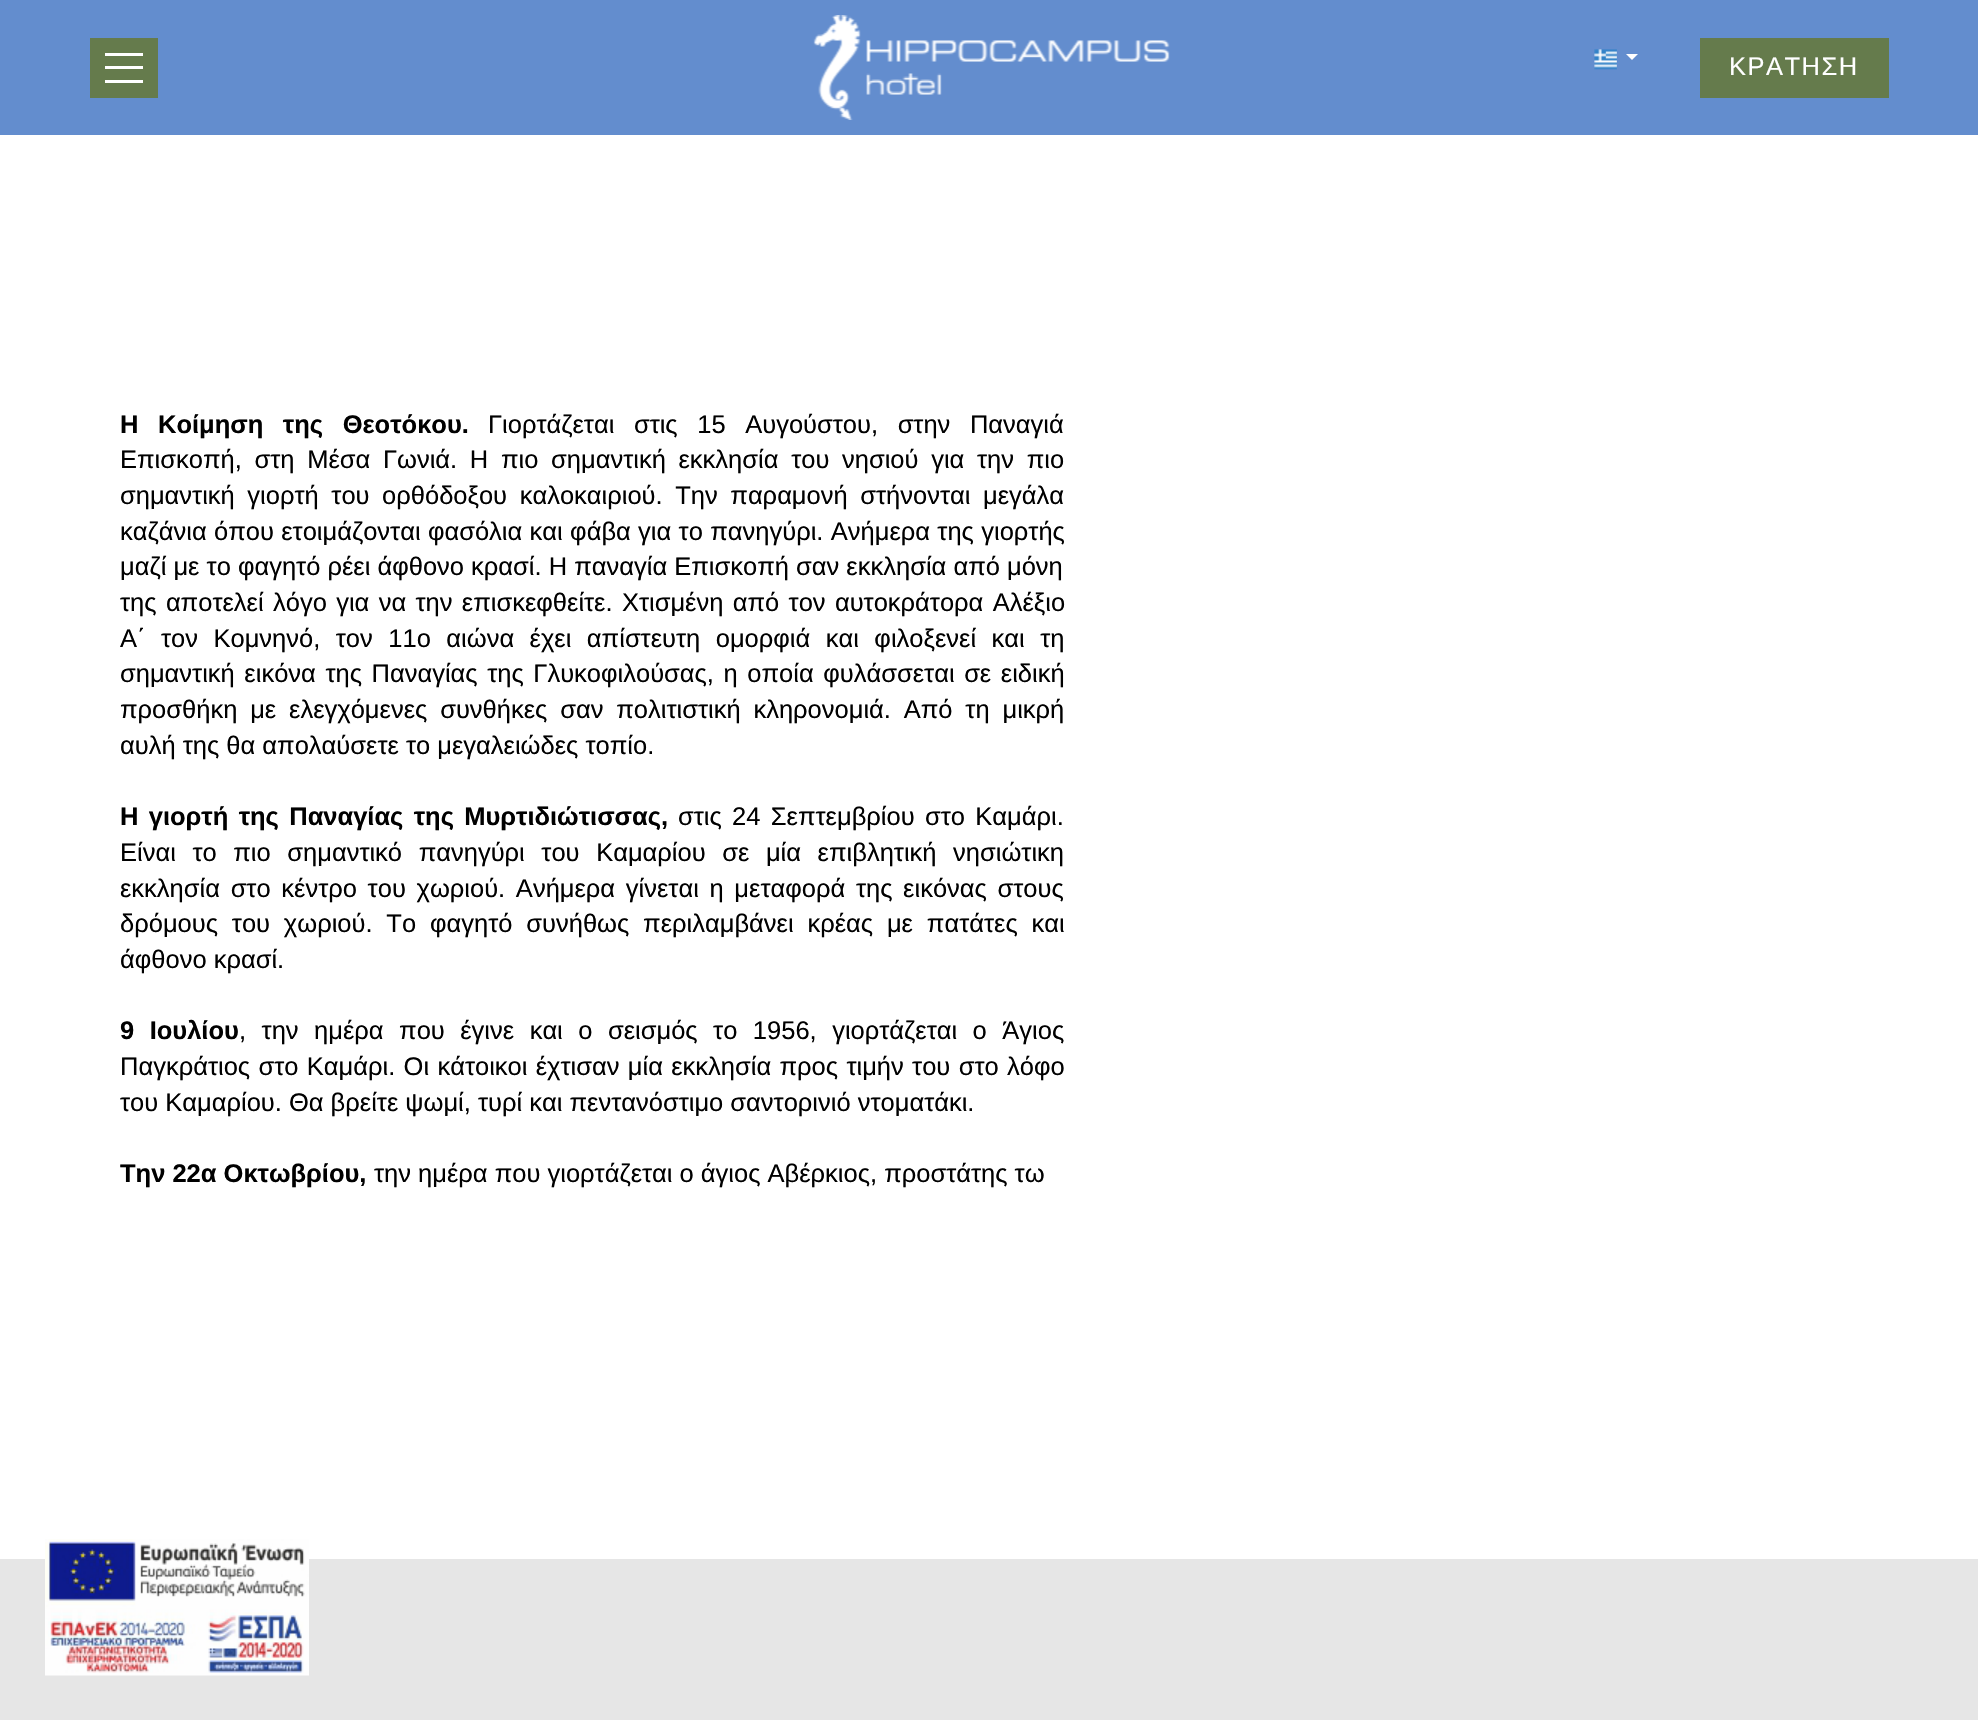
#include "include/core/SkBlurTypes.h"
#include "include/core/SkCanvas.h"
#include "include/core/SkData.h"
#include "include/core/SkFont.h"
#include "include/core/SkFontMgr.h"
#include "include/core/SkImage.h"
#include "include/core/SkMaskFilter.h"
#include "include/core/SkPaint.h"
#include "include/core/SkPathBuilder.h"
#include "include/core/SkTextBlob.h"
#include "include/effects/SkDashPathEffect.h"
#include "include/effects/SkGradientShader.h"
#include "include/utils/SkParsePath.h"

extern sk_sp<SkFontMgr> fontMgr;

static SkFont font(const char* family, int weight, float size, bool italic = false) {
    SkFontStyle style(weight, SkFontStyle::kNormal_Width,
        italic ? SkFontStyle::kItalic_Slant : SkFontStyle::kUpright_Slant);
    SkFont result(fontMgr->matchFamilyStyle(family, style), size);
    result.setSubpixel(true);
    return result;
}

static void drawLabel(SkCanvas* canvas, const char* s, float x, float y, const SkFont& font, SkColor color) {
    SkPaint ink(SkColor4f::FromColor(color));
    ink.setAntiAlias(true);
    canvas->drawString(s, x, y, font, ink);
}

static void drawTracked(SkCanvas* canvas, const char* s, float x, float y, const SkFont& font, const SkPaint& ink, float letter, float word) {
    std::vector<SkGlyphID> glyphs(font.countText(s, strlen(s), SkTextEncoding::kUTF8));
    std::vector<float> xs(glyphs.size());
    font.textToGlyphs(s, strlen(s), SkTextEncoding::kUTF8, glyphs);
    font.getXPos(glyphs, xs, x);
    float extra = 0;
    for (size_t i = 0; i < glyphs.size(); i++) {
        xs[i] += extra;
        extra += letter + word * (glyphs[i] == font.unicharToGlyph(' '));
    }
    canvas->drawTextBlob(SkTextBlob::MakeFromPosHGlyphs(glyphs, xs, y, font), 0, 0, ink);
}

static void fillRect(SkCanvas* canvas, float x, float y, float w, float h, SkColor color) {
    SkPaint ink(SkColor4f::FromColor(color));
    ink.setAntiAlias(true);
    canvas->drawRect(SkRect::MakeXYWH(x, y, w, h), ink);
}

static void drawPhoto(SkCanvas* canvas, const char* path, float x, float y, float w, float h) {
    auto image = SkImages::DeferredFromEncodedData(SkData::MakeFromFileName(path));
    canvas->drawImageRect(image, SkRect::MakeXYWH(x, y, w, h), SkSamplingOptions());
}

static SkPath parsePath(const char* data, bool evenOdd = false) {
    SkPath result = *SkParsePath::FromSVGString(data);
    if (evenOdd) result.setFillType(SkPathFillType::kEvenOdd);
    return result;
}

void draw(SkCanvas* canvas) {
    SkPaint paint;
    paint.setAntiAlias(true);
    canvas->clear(0xFFFFFFFF);
    fillRect(canvas, 0, 0, 1978, 135, 0xFF638DCE);
    fillRect(canvas, 90, 38, 68, 60, 0xFF657B4C);
    fillRect(canvas, 105, 53, 38, 3, 0xFFFFFFFF);
    fillRect(canvas, 105, 66, 38, 3, 0xFFFFFFFF);
    fillRect(canvas, 105, 80, 38, 3, 0xFFFFFFFF);
    drawPhoto(canvas, "assets/img1.png", 813, 15, 357, 105);
    drawPhoto(canvas, "assets/img2.png", 1594, 49, 23, 21);
    paint.setColor(0xFFFFFFFF);
    canvas->drawPath(parsePath("M1626 54H1638L1632 60Z"), paint);
    fillRect(canvas, 1700, 38, 189, 60, 0xFF657B4C);
    SkFont font1 = font("Liberation Sans", 400, 25.5f);
    drawTracked(canvas, "ΚΡΑΤΗΣΗ", 1729, 75, font1, paint, 1.5f, 0);
    SkFont font2 = font("Liberation Sans", 700, 25.5f);
    paint.setColor(0xFF000000);
    drawTracked(canvas, "Η Κοίμηση της Θεοτόκου.", 120, 433, font2, paint, 0, 12.5f);
    drawTracked(canvas, "Γιορτάζεται στις 15 Αυγούστου, στην Παναγιά", 488, 433, font1, paint, 0, 12.5f);
    drawTracked(canvas, "Επισκοπή, στη Μέσα Γωνιά. Η πιο σημαντική εκκλησία του νησιού για την πιο", 120, 468, font1, paint, 0, 5.6f);
    drawTracked(canvas, "σημαντική γιορτή του ορθόδοξου καλοκαιριού. Την παραμονή στήνονται μεγάλα", 120, 504, font1, paint, 0, 5.5f);
    drawTracked(canvas, "καζάνια όπου ετοιμάζονται φασόλια και φάβα για το πανηγύρι. Ανήμερα της γιορτής", 120, 540, font1, paint, 0, 0.25f);
    drawLabel(canvas, "μαζί με το φαγητό ρέει άφθονο κρασί. Η παναγία Επισκοπή σαν εκκλησία από μόνη", 120, 575, font1, 0xFF000000);
    drawTracked(canvas, "της αποτελεί λόγο για να την επισκεφθείτε. Χτισμένη από τον αυτοκράτορα Αλέξιο", 120, 611, font1, paint, 0, 2.25f);
    drawTracked(canvas, "Α΄ τον Κομνηνό, τον 11ο αιώνα έχει απίστευτη ομορφιά και φιλοξενεί και τη", 120, 647, font1, paint, 0, 8.4f);
    drawTracked(canvas, "σημαντική εικόνα της Παναγίας της Γλυκοφιλούσας, η οποία φυλάσσεται σε ειδική", 120, 682, font1, paint, 0, 2.5f);
    drawTracked(canvas, "προσθήκη με ελεγχόμενες συνθήκες σαν πολιτιστική κληρονομιά. Από τη μικρή", 120, 718, font1, paint, 0, 5.75f);
    drawLabel(canvas, "αυλή της θα απολαύσετε το μεγαλειώδες τοπίο.", 120, 754, font1, 0xFF000000);
    drawTracked(canvas, "Η γιορτή της Παναγίας της Μυρτιδιώτισσας,", 120, 825, font2, paint, 0, 3.25f);
    drawTracked(canvas, "στις 24 Σεπτεμβρίου στο Καμάρι.", 678, 825, font1, paint, 0, 3.25f);
    drawTracked(canvas, "Είναι το πιο σημαντικό πανηγύρι του Καμαρίου σε μία επιβλητική νησιώτικη", 120, 861, font1, paint, 0, 9.5f);
    drawTracked(canvas, "εκκλησία στο κέντρο του χωριού. Ανήμερα γίνεται η μεταφορά της εικόνας στους", 120, 897, font1, paint, 0, 3.6f);
    drawTracked(canvas, "δρόμους του χωριού. Το φαγητό συνήθως περιλαμβάνει κρέας με πατάτες και", 120, 932, font1, paint, 0, 6.75f);
    drawLabel(canvas, "άφθονο κρασί.", 120, 968, font1, 0xFF000000);
    drawTracked(canvas, "9 Ιουλίου", 120, 1039, font2, paint, 0, 8.4f);
    drawTracked(canvas, ", την ημέρα που έγινε και ο σεισμός το 1956, γιορτάζεται ο Άγιος", 239, 1039, font1, paint, 0, 8.4f);
    drawTracked(canvas, "Παγκράτιος στο Καμάρι. Οι κάτοικοι έχτισαν μία εκκλησία προς τιμήν του στο λόφο", 120, 1075, font1, paint, 0, 1.25f);
    drawLabel(canvas, "του Καμαρίου. Θα βρείτε ψωμί, τυρί και πεντανόστιμο σαντορινιό ντοματάκι.", 120, 1111, font1, 0xFF000000);
    drawLabel(canvas, "Την 22α Οκτωβρίου,", 120, 1182, font2, 0xFF000000);
    drawLabel(canvas, "την ημέρα που γιορτάζεται ο άγιος Αβέρκιος, προστάτης τω", 374, 1182, font1, 0xFF000000);
    fillRect(canvas, 0, 1559, 1978, 161, 0xFFE6E6E6);
    drawPhoto(canvas, "assets/img3.png", 45, 1539, 264, 137);
}
